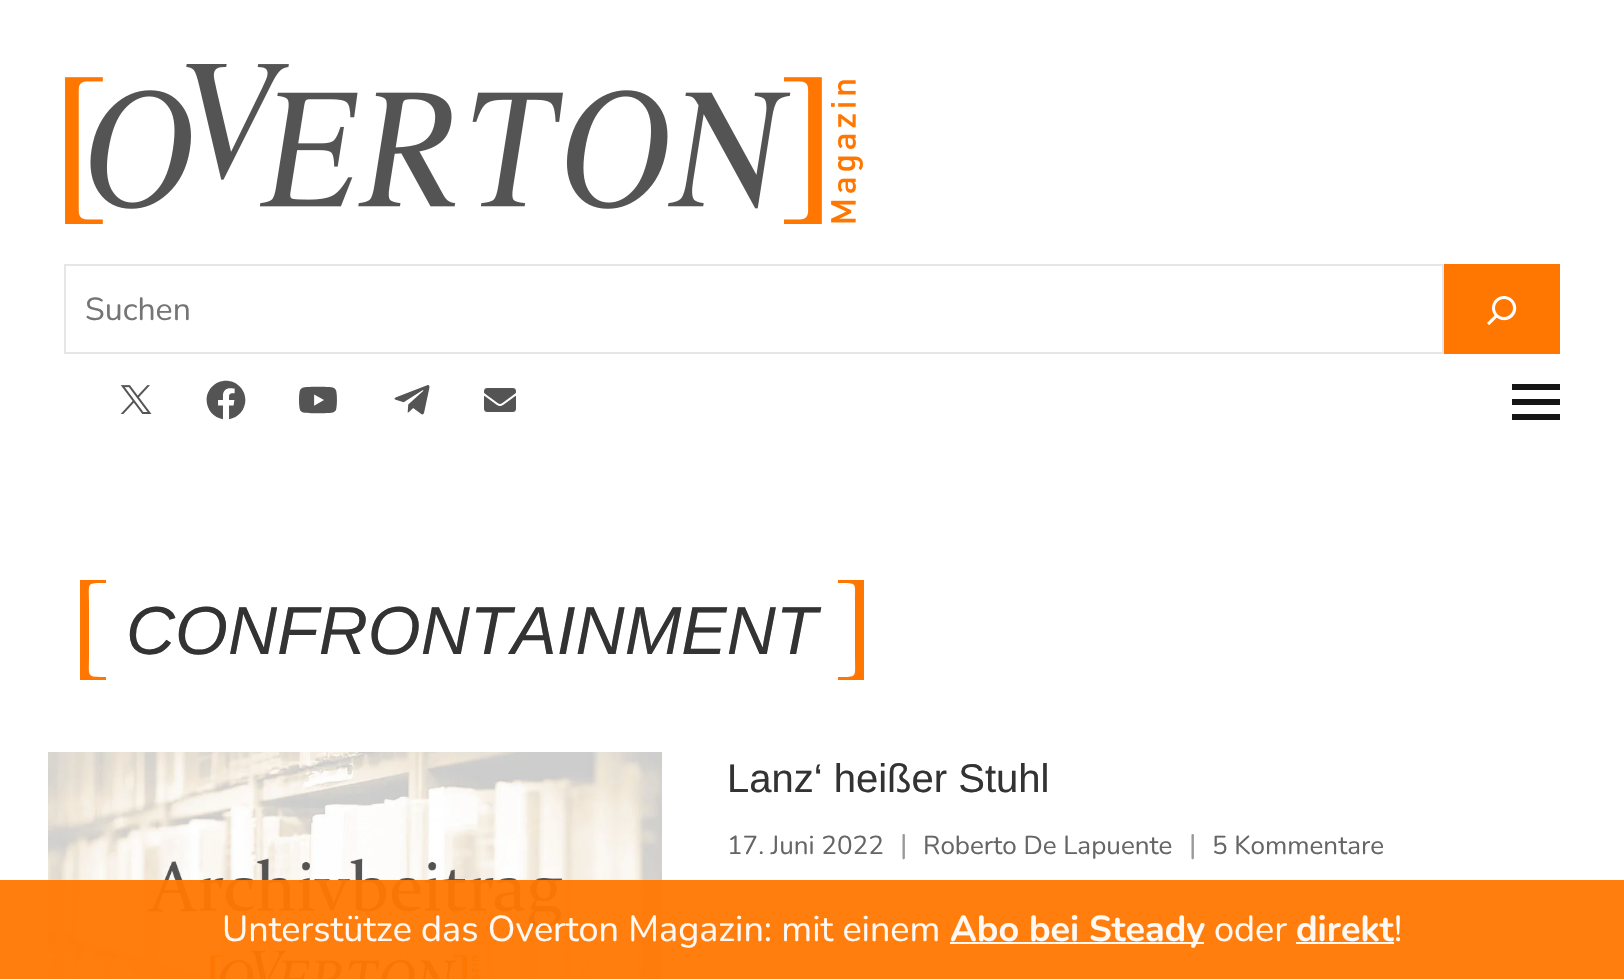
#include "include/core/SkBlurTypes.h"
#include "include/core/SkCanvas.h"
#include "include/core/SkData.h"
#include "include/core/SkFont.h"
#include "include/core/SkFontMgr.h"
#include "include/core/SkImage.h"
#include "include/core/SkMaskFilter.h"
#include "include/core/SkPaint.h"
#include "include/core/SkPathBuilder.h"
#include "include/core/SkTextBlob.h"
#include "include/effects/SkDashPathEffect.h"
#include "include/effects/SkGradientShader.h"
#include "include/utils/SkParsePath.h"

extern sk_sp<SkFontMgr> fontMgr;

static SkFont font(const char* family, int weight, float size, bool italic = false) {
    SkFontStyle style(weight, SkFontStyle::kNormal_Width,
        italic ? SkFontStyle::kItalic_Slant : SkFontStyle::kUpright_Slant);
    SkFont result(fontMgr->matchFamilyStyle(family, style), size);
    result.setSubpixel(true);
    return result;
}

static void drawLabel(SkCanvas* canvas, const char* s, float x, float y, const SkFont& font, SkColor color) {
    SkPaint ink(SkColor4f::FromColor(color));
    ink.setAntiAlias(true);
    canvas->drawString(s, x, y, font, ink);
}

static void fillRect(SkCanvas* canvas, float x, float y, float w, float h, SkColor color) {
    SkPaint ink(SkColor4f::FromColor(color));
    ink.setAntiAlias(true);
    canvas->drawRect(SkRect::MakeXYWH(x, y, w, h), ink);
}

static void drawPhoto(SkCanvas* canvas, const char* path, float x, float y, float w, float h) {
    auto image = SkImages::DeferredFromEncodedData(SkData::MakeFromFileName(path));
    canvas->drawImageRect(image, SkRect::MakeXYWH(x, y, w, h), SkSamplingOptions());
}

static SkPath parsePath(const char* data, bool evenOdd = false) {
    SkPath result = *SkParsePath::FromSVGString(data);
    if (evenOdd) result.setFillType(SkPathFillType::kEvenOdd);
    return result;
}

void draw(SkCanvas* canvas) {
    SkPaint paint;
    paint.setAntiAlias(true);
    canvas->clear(0xFFFFFFFF);
    drawPhoto(canvas, "assets/img1.png", 65, 64, 798, 160);
    paint.setStroke(true);
    paint.setStrokeWidth(2);
    paint.setColor(0xFFE6E6E6);
    canvas->drawRect(SkRect::MakeXYWH(65, 265, 1378, 88), paint);
    SkFont font1 = font("Nunito", 400, 32);
    drawLabel(canvas, "Suchen", 85, 320, font1, 0xFF757575);
    fillRect(canvas, 1444, 264, 116, 90, 0xFFFF7701);
    drawPhoto(canvas, "assets/img2.png", 1487, 296, 30, 30);
    drawPhoto(canvas, "assets/img3.png", 120, 385, 32, 29);
    drawPhoto(canvas, "assets/img4.png", 206, 380, 40, 40);
    drawPhoto(canvas, "assets/img5.png", 299, 386, 38, 28);
    drawPhoto(canvas, "assets/img6.png", 394, 385, 36, 30);
    drawPhoto(canvas, "assets/img7.png", 484, 388, 32, 24);
    drawPhoto(canvas, "assets/img8.png", 1512, 384, 48, 36);
    paint.setStroke(false);
    paint.setColor(0xFFFF7600);
    canvas->drawPath(parsePath("M80 580H106V583C86 583 89 582 89 602V657C89 677 86 677 106 677V680H80Z"), paint);
    SkFont font2 = font("Liberation Sans", 400, 68, true);
    drawLabel(canvas, "CONFRONTAINMENT", 126, 654, font2, 0xFF333333);
    canvas->drawPath(parsePath("M864 680H838V677C858 677 855 678 855 657V602C855 582 858 583 838 583V580H864Z"), paint);
    drawPhoto(canvas, "assets/img9.png", 48, 752, 614, 227);
    SkFont font3 = font("Liberation Sans", 400, 40);
    drawLabel(canvas, "Lanz‘ heißer Stuhl", 727, 792, font3, 0xFF333333);
    SkFont font4 = font("Nunito", 400, 26);
    drawLabel(canvas, "17. Juni 2022", 727, 854, font4, 0xFF666666);
    SkFont font5 = font("Nunito", 400, 28);
    drawLabel(canvas, "|", 900, 854, font5, 0xFF999999);
    drawLabel(canvas, "Roberto De Lapuente", 923, 854, font4, 0xFF666666);
    drawLabel(canvas, "|", 1189, 854, font5, 0xFF999999);
    drawLabel(canvas, "5 Kommentare", 1212, 854, font4, 0xFF666666);
    fillRect(canvas, 0, 880, 1624, 99, 0xF2FF7701);
    SkFont font6 = font("Nunito", 400, 36);
    drawLabel(canvas, "Unterstütze das Overton Magazin: mit einem", 222, 941, font6, 0xFFFFF8F3);
    fillRect(canvas, 950, 942, 254, 2, 0xF2FFFFFF);
    SkFont font7 = font("Nunito", 700, 36);
    drawLabel(canvas, "Abo bei Steady", 950, 941, font7, 0xFFFFF8F3);
    drawLabel(canvas, "oder", 1214, 941, font6, 0xFFFFF8F3);
    drawLabel(canvas, "direkt", 1296, 941, font7, 0xFFFFF8F3);
    fillRect(canvas, 1296, 942, 98, 2, 0xF2FFFFFF);
    drawLabel(canvas, "!", 1394, 941, font6, 0xFFFFFFFF);
}
